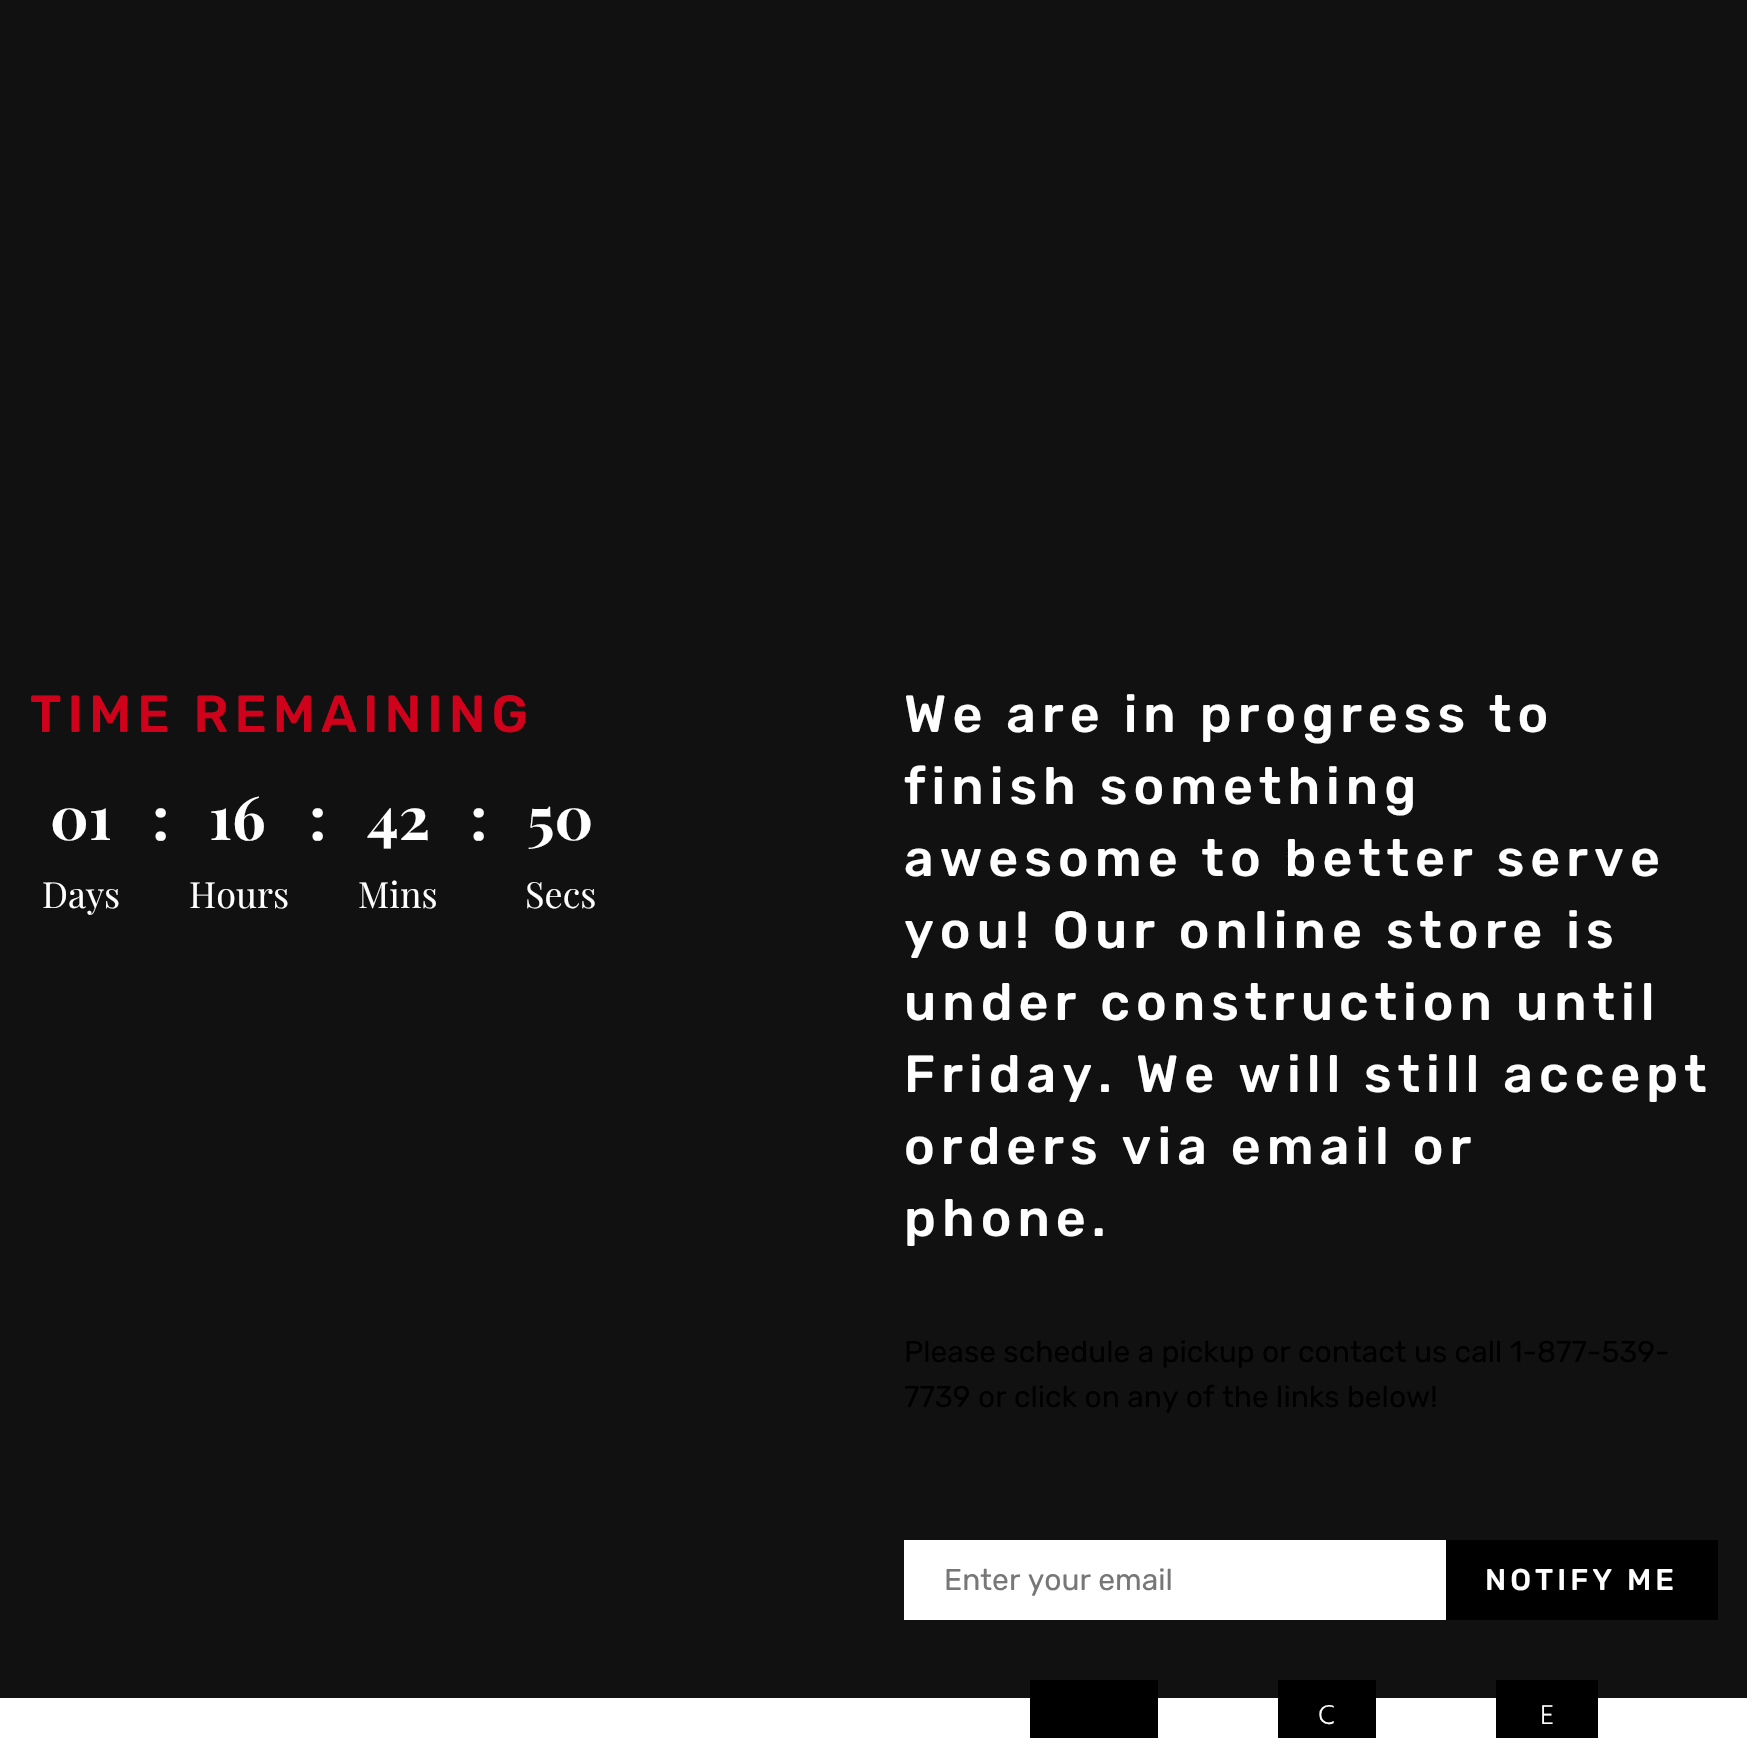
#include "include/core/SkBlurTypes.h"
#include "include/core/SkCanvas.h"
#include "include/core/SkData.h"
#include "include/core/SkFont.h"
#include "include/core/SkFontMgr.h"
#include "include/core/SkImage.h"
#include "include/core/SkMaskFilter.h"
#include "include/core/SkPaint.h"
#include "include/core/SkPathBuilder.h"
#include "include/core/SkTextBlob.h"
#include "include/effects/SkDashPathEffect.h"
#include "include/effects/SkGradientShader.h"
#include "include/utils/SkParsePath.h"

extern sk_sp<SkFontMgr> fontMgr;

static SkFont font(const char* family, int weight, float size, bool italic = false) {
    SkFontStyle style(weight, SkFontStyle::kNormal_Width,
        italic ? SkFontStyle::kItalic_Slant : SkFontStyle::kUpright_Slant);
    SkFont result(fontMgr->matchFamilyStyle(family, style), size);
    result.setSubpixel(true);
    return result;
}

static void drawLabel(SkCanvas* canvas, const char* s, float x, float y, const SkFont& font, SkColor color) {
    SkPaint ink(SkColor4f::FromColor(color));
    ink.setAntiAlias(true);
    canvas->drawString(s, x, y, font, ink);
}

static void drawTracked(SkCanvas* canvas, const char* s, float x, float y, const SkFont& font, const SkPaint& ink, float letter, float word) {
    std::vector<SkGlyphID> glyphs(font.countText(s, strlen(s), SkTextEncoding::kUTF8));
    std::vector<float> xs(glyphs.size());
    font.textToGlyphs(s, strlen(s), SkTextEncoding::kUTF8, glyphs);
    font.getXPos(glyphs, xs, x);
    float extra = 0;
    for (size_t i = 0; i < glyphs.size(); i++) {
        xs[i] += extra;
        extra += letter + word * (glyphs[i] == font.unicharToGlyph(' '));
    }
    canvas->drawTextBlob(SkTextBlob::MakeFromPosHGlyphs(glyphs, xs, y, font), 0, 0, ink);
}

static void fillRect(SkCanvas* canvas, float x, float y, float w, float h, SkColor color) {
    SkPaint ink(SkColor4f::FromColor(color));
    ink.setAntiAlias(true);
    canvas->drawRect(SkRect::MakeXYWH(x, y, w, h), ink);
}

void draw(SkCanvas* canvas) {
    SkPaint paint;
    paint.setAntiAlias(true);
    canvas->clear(0xFFFFFFFF);
    fillRect(canvas, 0, 0, 1747, 1698, 0xFF111111);
    SkFont font1 = font("Rubik", 500, 52);
    paint.setColor(0xFFD0021B);
    drawTracked(canvas, "TIME REMAINING", 30, 732, font1, paint, 6, 0);
    SkFont font2 = font("Playfair Display", 700, 60);
    drawLabel(canvas, "01", 50, 840, font2, 0xFFFFFFFF);
    SkFont font3 = font("Playfair Display", 400, 36);
    drawLabel(canvas, "Days", 42, 908, font3, 0xFFFFFFFF);
    drawLabel(canvas, ":", 152, 840, font2, 0xFFFFFFFF);
    drawLabel(canvas, "16", 209, 840, font2, 0xFFFFFFFF);
    drawLabel(canvas, "Hours", 189, 908, font3, 0xFFFFFFFF);
    drawLabel(canvas, ":", 309, 840, font2, 0xFFFFFFFF);
    drawLabel(canvas, "42", 367, 840, font2, 0xFFFFFFFF);
    drawLabel(canvas, "Mins", 358, 908, font3, 0xFFFFFFFF);
    drawLabel(canvas, ":", 470, 840, font2, 0xFFFFFFFF);
    drawLabel(canvas, "50", 527, 840, font2, 0xFFFFFFFF);
    drawLabel(canvas, "Secs", 525, 908, font3, 0xFFFFFFFF);
    paint.setColor(0xFFFFFFFF);
    drawTracked(canvas, "We are in progress to", 904, 732, font1, paint, 6, 0);
    drawTracked(canvas, "finish something", 904, 804, font1, paint, 6, 0);
    drawTracked(canvas, "awesome to better serve", 904, 876, font1, paint, 6, 0);
    drawTracked(canvas, "you! Our online store is", 904, 948, font1, paint, 6, 0);
    drawTracked(canvas, "under construction until", 904, 1020, font1, paint, 6, 0);
    drawTracked(canvas, "Friday. We will still accept", 904, 1092, font1, paint, 6, 0);
    drawTracked(canvas, "orders via email or", 904, 1164, font1, paint, 6, 0);
    drawTracked(canvas, "phone.", 904, 1236, font1, paint, 6, 0);
    SkFont font4 = font("Rubik", 400, 30);
    drawLabel(canvas, "Please schedule a pickup or contact us call 1-877-539-", 904, 1362, font4, 0xFF000000);
    drawLabel(canvas, "7739 or click on any of the links below!", 904, 1407, font4, 0xFF000000);
    fillRect(canvas, 904, 1540, 542, 80, 0xFFFFFFFF);
    drawLabel(canvas, "Enter your email", 944, 1590, font4, 0xFF777777);
    fillRect(canvas, 1446, 1540, 272, 80, 0xFF000000);
    SkFont font5 = font("Rubik", 500, 30);
    drawTracked(canvas, "NOTIFY ME", 1485, 1590, font5, paint, 4, 0);
    fillRect(canvas, 1030, 1680, 128, 58, 0xFF000000);
    fillRect(canvas, 1278, 1680, 98, 58, 0xFF000000);
    SkFont font6 = font("Hind", 300, 28);
    drawLabel(canvas, "C", 1318, 1724, font6, 0xFFFFFFFF);
    fillRect(canvas, 1496, 1680, 102, 58, 0xFF000000);
    drawLabel(canvas, "E", 1540, 1724, font6, 0xFFFFFFFF);
}
